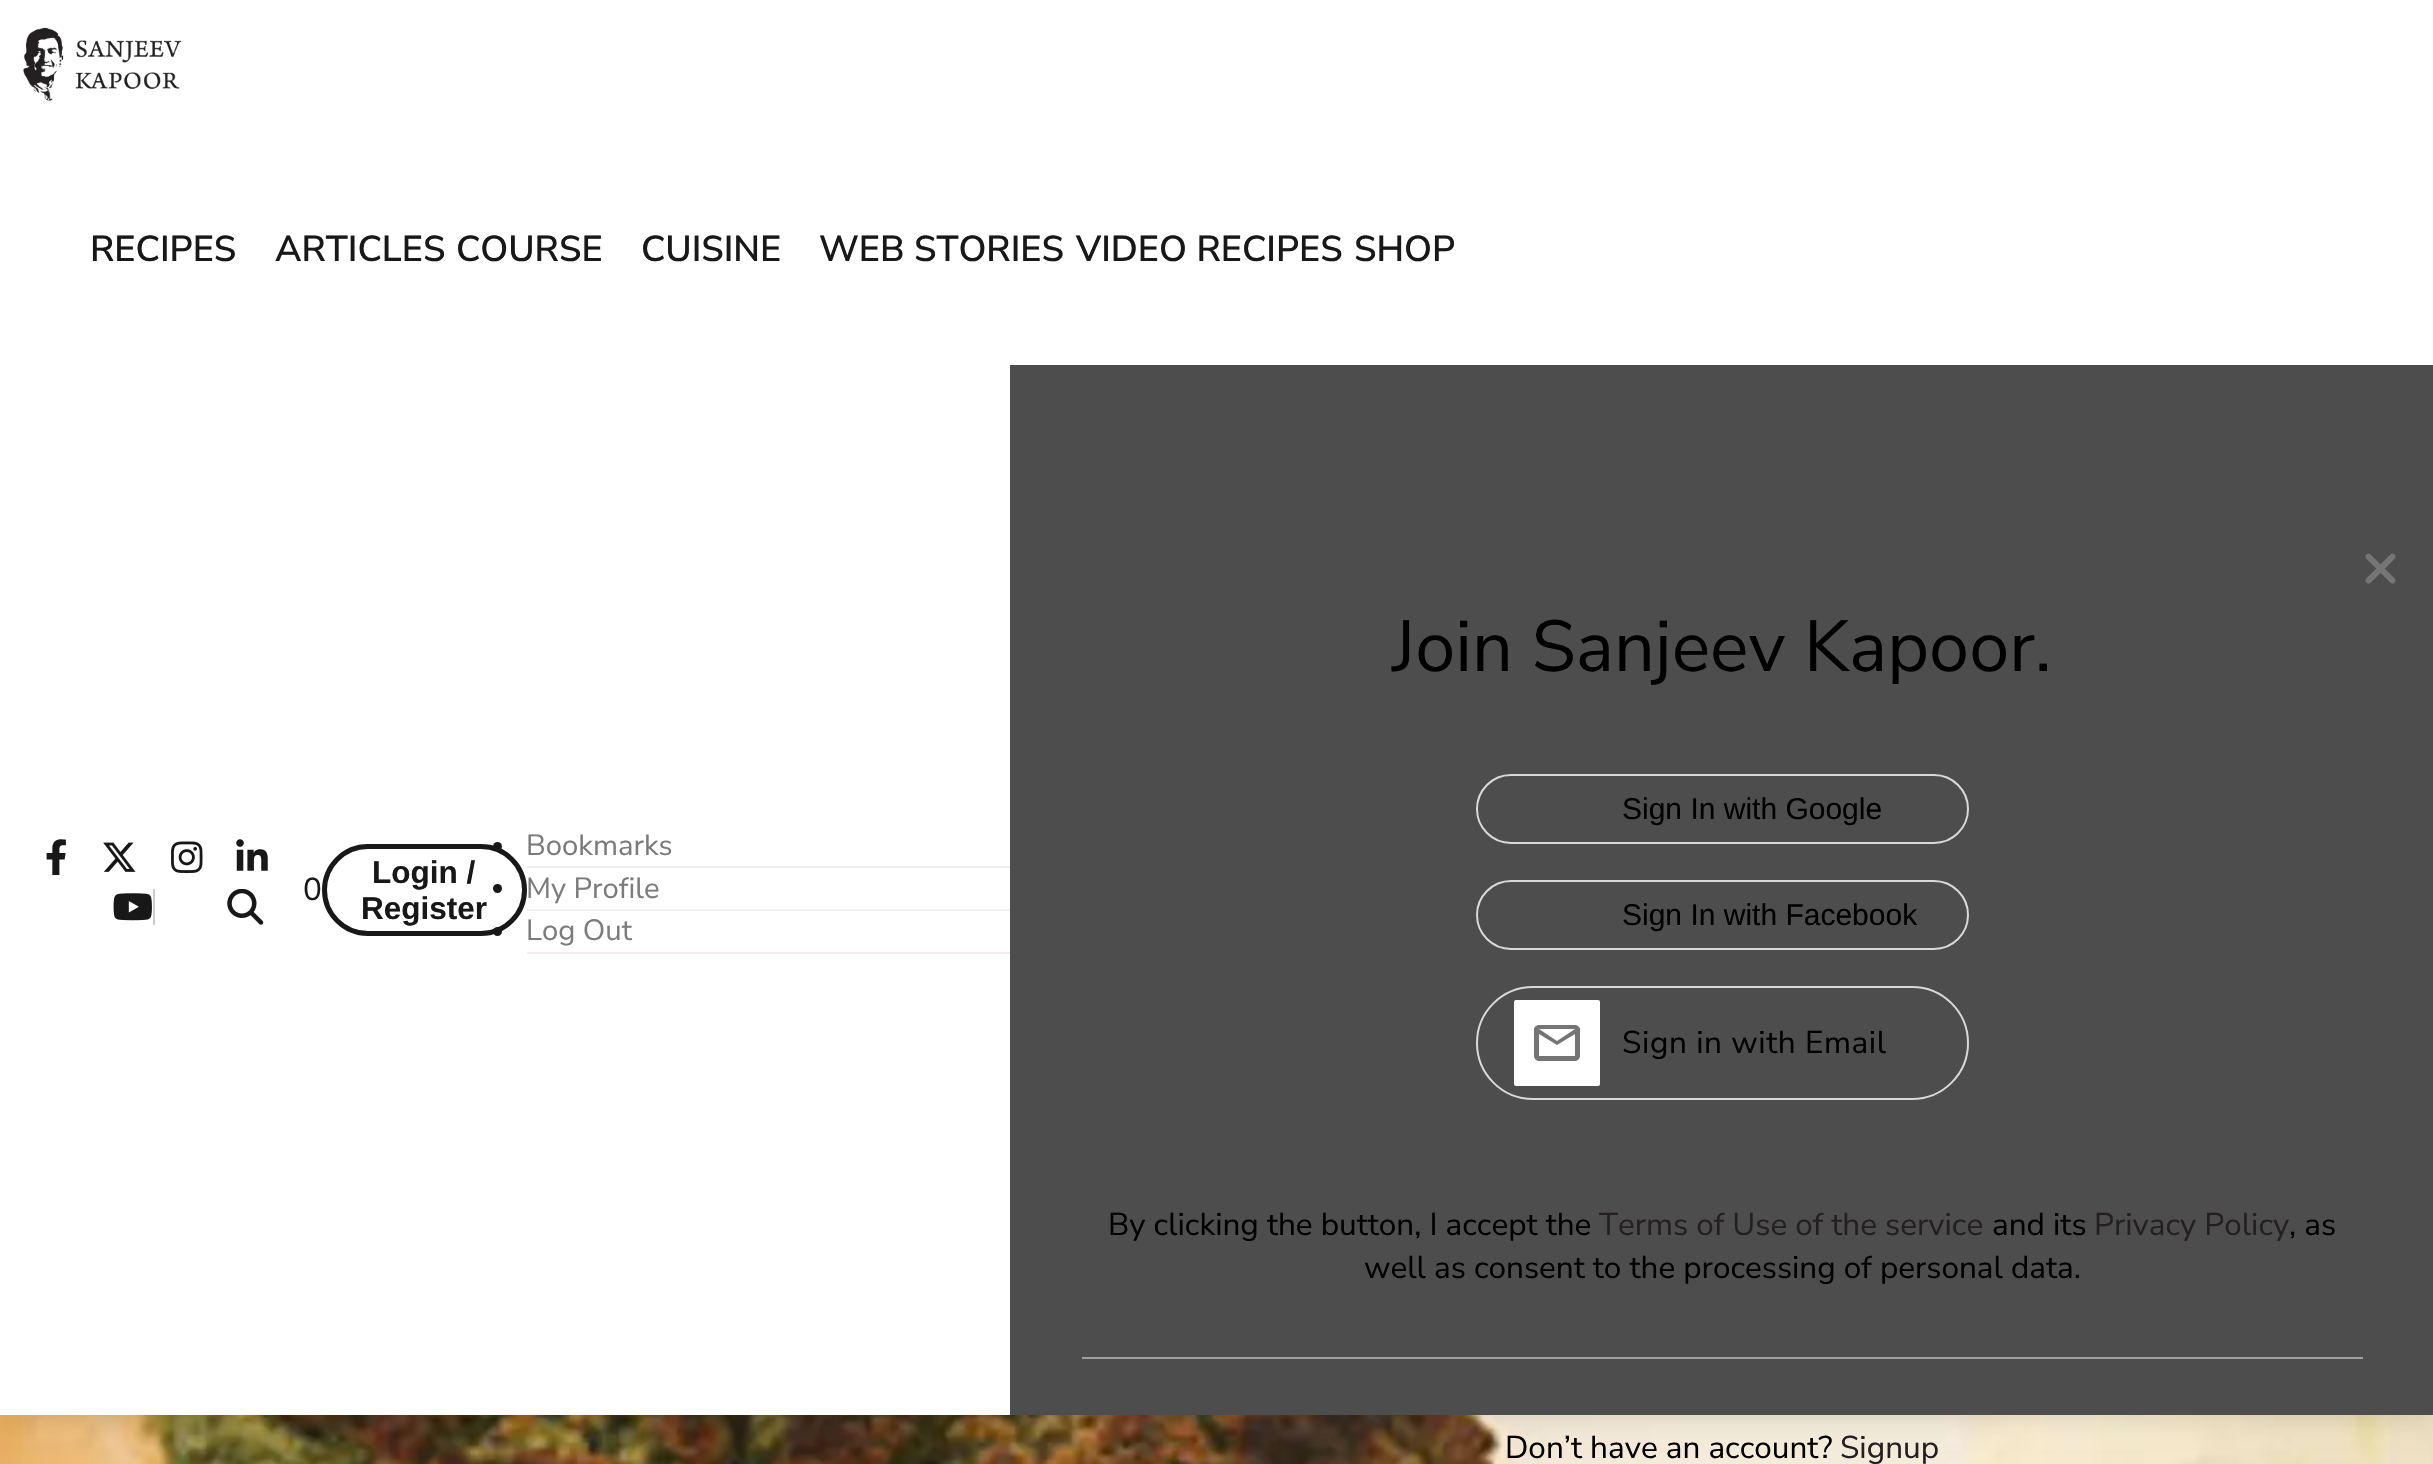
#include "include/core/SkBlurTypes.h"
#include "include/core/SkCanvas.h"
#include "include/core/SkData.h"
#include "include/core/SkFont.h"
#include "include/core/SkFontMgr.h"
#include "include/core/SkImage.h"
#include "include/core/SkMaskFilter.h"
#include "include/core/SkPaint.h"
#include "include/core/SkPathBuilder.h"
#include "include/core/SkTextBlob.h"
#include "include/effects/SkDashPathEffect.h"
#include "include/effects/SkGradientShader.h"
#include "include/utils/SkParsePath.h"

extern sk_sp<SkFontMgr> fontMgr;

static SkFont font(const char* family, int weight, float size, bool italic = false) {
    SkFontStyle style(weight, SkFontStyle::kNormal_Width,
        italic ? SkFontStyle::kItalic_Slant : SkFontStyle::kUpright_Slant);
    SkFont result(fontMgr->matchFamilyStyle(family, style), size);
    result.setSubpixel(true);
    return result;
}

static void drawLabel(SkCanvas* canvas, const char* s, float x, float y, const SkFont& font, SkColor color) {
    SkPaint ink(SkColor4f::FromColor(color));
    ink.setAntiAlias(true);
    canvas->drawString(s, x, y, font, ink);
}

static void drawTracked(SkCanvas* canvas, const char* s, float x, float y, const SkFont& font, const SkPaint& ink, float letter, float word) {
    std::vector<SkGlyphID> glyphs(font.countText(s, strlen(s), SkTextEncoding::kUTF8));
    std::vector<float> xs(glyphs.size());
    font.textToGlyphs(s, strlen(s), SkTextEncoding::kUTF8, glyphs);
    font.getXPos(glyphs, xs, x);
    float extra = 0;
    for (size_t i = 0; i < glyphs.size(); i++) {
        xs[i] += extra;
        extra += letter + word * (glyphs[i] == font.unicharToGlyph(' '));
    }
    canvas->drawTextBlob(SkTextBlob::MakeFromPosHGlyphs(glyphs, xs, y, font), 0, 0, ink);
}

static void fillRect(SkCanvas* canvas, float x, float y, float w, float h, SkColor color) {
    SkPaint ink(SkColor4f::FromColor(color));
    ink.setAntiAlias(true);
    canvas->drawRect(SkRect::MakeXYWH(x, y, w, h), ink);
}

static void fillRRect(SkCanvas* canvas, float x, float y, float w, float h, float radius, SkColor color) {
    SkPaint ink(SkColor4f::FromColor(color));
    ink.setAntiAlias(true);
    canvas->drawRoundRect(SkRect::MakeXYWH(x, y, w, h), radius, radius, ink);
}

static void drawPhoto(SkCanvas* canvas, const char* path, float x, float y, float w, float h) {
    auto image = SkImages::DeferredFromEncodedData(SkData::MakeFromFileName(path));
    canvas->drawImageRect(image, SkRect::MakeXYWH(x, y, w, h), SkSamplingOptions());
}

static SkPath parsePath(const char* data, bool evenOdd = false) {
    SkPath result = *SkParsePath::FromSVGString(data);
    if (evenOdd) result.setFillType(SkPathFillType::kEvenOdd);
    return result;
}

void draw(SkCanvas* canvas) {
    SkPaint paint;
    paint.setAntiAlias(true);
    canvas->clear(0xFFFFFFFF);
    drawPhoto(canvas, "assets/img9.png", 0, 1415, 2433, 49);
    paint.setColor(0x1A000000);
    paint.setMaskFilter(SkMaskFilter::MakeBlur(kNormal_SkBlurStyle, 11));
    canvas->drawRect(SkRect::MakeXYWH(0, 5, 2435, 1415), paint);
    paint.setMaskFilter(nullptr);
    fillRect(canvas, 0, 0, 2433, 1415, 0xFFFFFFFF);
    drawPhoto(canvas, "assets/img1.png", 23, 27, 159, 75);
    SkFont font1 = font("Nunito Sans", 600, 36);
    drawLabel(canvas, "RECIPES", 90, 261, font1, 0xFF181818);
    drawLabel(canvas, "ARTICLES", 275, 261, font1, 0xFF181818);
    drawLabel(canvas, "COURSE", 456, 261, font1, 0xFF181818);
    drawLabel(canvas, "CUISINE", 641, 261, font1, 0xFF181818);
    drawLabel(canvas, "WEB STORIES", 819, 261, font1, 0xFF181818);
    drawLabel(canvas, "VIDEO RECIPES", 1076, 261, font1, 0xFF181818);
    drawLabel(canvas, "SHOP", 1354, 261, font1, 0xFF181818);
    drawPhoto(canvas, "assets/img2.png", 46, 839, 20, 36);
    drawPhoto(canvas, "assets/img3.png", 103, 842, 33, 30);
    drawPhoto(canvas, "assets/img4.png", 171, 841, 32, 32);
    drawPhoto(canvas, "assets/img5.png", 236, 839, 32, 32);
    drawPhoto(canvas, "assets/img6.png", 113, 893, 39, 28);
    fillRect(canvas, 153, 889, 2, 36, 0xFFCDCACA);
    drawPhoto(canvas, "assets/img7.png", 227, 889, 37, 36);
    SkFont font2 = font("Nunito Sans", 400, 31.5f);
    drawLabel(canvas, "0", 303, 900, font2, 0xFF181818);
    paint.setStroke(true);
    paint.setStrokeWidth(5);
    paint.setColor(0xFF181818);
    canvas->drawRoundRect(SkRect::MakeXYWH(324.5f, 846.5f, 200, 87), 43.5f, 43.5f, paint);
    SkFont font3 = font("Liberation Sans", 700, 31.5f);
    drawLabel(canvas, "Login /", 372, 883, font3, 0xFF181818);
    drawLabel(canvas, "Register", 361, 919, font3, 0xFF181818);
    paint.setStroke(false);
    canvas->drawCircle(497.5f, 846.5f, 4.5f, paint);
    fillRect(canvas, 527, 866, 483, 2, 0xFFF4EDED);
    SkFont font4 = font("Nunito Sans", 400, 29.25f);
    drawLabel(canvas, "Bookmarks", 526, 855, font4, 0xFF7B7B7B);
    canvas->drawCircle(497.5f, 888.5f, 4.5f, paint);
    fillRect(canvas, 527, 909, 483, 2, 0xFFF4EDED);
    drawLabel(canvas, "My Profile", 526, 898, font4, 0xFF7B7B7B);
    canvas->drawCircle(497.5f, 931.5f, 4.5f, paint);
    fillRect(canvas, 527, 952, 483, 2, 0xFFF4EDED);
    drawLabel(canvas, "Log Out", 526, 940, font4, 0xFF7B7B7B);
    fillRect(canvas, 1010, 365, 1423, 1050, 0xFF4D4D4D);
    drawPhoto(canvas, "assets/img8.png", 2365, 553, 31, 31);
    SkFont font5 = font("Nunito Sans", 400, 72);
    drawLabel(canvas, "Join Sanjeev Kapoor.", 1392, 671, font5, 0xFF000000);
    paint.setStroke(true);
    paint.setStrokeWidth(2);
    paint.setColor(0xFFD9D9D9);
    canvas->drawRoundRect(SkRect::MakeXYWH(1477, 775, 491, 68), 34, 34, paint);
    SkFont font6 = font("Liberation Sans", 400, 30);
    drawLabel(canvas, "Sign In with Google", 1622, 819, font6, 0xFF000000);
    canvas->drawRoundRect(SkRect::MakeXYWH(1477, 881, 491, 68), 34, 34, paint);
    drawLabel(canvas, "Sign In with Facebook", 1622, 925, font6, 0xFF000000);
    canvas->drawRoundRect(SkRect::MakeXYWH(1477, 987, 491, 112), 56, 56, paint);
    fillRRect(canvas, 1514, 1000, 86, 86, 2, 0xFFFFFFFF);
    paint.setStroke(false);
    paint.setColor(0xFF757575);
    canvas->drawPath(parsePath("M1580 1029C1580 1027 1577 1025 1575 1025H1539C1537 1025 1534 1027 1534 1029V1056C1534 1059 1537 1061 1539 1061H1575C1577 1061 1580 1059 1580 1056ZM1575 1029L1557 1041L1539 1029ZM1575 1056H1539V1034L1557 1045L1575 1034Z"), paint);
    paint.setColor(0xFF000000);
    drawTracked(canvas, "Sign in with Email", 1622, 1053, font2, paint, 0.6f, 0);
    drawLabel(canvas, "By clicking the button, I accept the", 1108, 1235, font2, 0xFF000000);
    drawLabel(canvas, "Terms of Use of the service", 1599, 1235, font2, 0xFF242021);
    drawLabel(canvas, "and its", 1992, 1235, font2, 0xFF000000);
    drawLabel(canvas, "Privacy Policy", 2094, 1235, font2, 0xFF242021);
    drawLabel(canvas, ", as", 2289, 1235, font2, 0xFF000000);
    drawLabel(canvas, "well as consent to the processing of personal data.", 1364, 1278, font2, 0xFF000000);
    fillRect(canvas, 1082, 1357, 1281, 2, 0xFFA0A0A0);
    drawLabel(canvas, "Don’t have an account?", 1505, 1458, font2, 0xFF000000);
    drawLabel(canvas, "Signup", 1840, 1458, font2, 0xFF242021);
}
